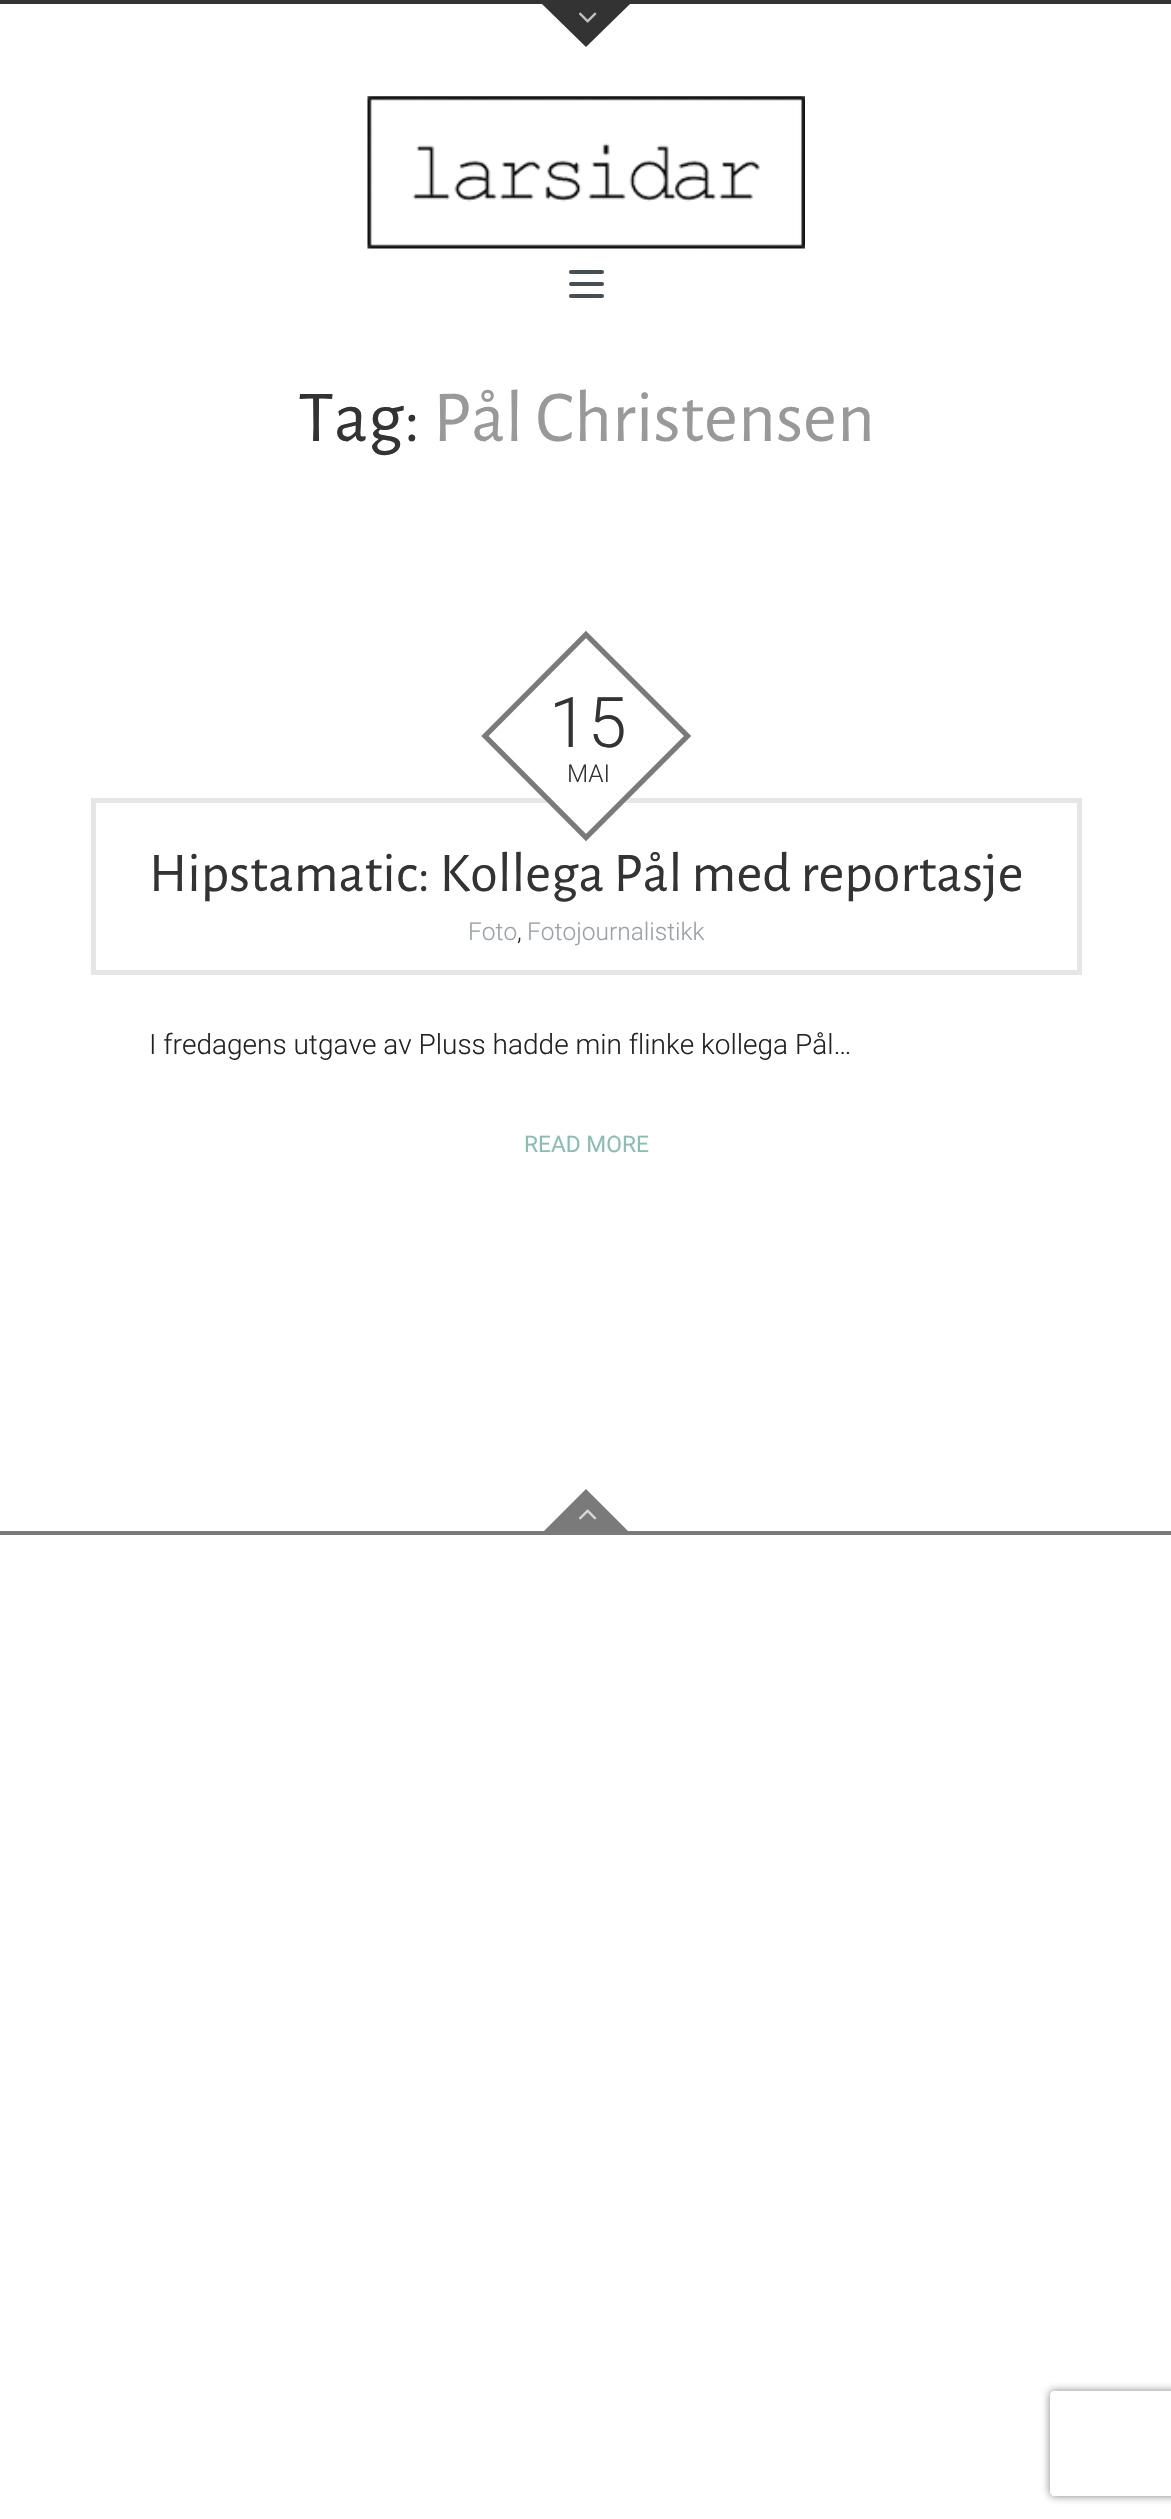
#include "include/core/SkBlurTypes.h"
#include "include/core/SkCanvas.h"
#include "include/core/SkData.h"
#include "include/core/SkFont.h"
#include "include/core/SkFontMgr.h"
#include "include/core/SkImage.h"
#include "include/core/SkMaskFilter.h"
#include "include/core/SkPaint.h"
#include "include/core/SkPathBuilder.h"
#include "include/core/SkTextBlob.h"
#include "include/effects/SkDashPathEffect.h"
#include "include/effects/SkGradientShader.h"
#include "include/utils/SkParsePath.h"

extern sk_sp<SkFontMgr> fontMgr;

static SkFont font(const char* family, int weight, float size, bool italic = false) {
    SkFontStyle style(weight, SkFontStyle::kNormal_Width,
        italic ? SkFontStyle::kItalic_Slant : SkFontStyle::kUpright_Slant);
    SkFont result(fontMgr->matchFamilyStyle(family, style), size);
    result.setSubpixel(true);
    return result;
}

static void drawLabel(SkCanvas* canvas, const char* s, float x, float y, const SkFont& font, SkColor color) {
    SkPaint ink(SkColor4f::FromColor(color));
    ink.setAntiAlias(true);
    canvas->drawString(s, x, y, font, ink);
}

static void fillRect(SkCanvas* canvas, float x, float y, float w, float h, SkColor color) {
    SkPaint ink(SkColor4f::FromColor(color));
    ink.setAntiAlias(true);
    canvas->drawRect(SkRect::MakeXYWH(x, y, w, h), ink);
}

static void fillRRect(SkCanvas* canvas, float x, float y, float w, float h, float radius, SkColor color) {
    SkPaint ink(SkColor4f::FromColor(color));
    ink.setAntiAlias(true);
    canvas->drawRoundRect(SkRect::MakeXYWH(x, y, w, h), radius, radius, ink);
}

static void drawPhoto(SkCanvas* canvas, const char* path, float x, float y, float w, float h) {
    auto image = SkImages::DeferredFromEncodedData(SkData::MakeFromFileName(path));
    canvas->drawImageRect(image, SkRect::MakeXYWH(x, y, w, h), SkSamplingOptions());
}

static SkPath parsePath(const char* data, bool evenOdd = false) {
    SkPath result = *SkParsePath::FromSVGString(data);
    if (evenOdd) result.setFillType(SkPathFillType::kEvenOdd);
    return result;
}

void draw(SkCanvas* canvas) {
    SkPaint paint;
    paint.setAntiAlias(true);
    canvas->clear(0xFFFFFFFF);
    fillRect(canvas, 0, 0, 1171, 4, 0xFF333333);
    paint.setColor(0xFF333333);
    canvas->drawPath(parsePath("M542 4H630L586 47Z"), paint);
    drawPhoto(canvas, "assets/img1.png", 578, 12, 19, 11);
    drawPhoto(canvas, "assets/img2.png", 367, 96, 438, 153);
    fillRRect(canvas, 569, 282, 35, 4, 2, 0xFF454E53);
    fillRRect(canvas, 569, 270, 35, 4, 2, 0xFF454E53);
    fillRRect(canvas, 569, 294, 35, 4, 2, 0xFF454E53);
    SkFont font1 = font("Alegreya Sans", 400, 73.5f);
    drawLabel(canvas, "Tag:", 298, 441, font1, 0xFF333333);
    drawLabel(canvas, "Pål Christensen", 433, 441, font1, 0xFF999999);
    paint.setStroke(true);
    paint.setStrokeWidth(5);
    paint.setColor(0xFFE6E6E6);
    canvas->drawRect(SkRect::MakeXYWH(93.5f, 800.5f, 986, 172), paint);
    paint.setStroke(false);
    paint.setColor(0xFFFFFFFF);
    canvas->drawPath(parsePath("M586 631L691 736L586 841L481 736Z"), paint);
    paint.setStroke(true);
    paint.setStrokeWidth(5.3f);
    paint.setColor(0xFF7A7A7A);
    canvas->drawPath(parsePath("M586 634.5L687.5 736L586 837.5L485 736Z"), paint);
    SkFont font2 = font("Roboto", 300, 70);
    drawLabel(canvas, "15", 549, 747, font2, 0xFF333333);
    SkFont font3 = font("Roboto", 300, 24.5f);
    drawLabel(canvas, "MAI", 567, 782, font3, 0xFF333333);
    SkFont font4 = font("Alegreya Sans", 400, 56);
    drawLabel(canvas, "Hipstamatic: Kollega Pål med reportasje", 149, 891, font4, 0xFF333333);
    drawLabel(canvas, "Foto", 468, 940, font3, 0xFF97A1A7);
    drawLabel(canvas, ",", 517, 940, font3, 0xFF222222);
    drawLabel(canvas, "Fotojournalistikk", 527, 940, font3, 0xFF97A1A7);
    SkFont font5 = font("Roboto", 300, 28);
    drawLabel(canvas, "I fredagens utgave av Pluss hadde min flinke kollega Pål…", 149, 1054, font5, 0xFF222222);
    SkFont font6 = font("Roboto", 400, 22.75f);
    drawLabel(canvas, "READ MORE", 524, 1152, font6, 0xFF8ABEB2);
    fillRect(canvas, 0, 1531, 1171, 4, 0xFF7A7A7A);
    paint.setStroke(false);
    canvas->drawPath(parsePath("M630 1533H542L586 1489Z"), paint);
    drawPhoto(canvas, "assets/img3.png", 579, 1509, 18, 11);
    canvas->save();
    canvas->clipPath(parsePath("M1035 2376H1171V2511H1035ZM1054 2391H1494C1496 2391 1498 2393 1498 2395V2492C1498 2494 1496 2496 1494 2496H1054C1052 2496 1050 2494 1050 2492V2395C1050 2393 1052 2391 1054 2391Z", true), true);
    paint.setColor(0xFF808080);
    paint.setMaskFilter(SkMaskFilter::MakeBlur(kNormal_SkBlurStyle, 4.5f));
    canvas->drawRoundRect(SkRect::MakeXYWH(1050, 2391, 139, 105), 4, 4, paint);
    paint.setMaskFilter(nullptr);
    canvas->restore();
}
